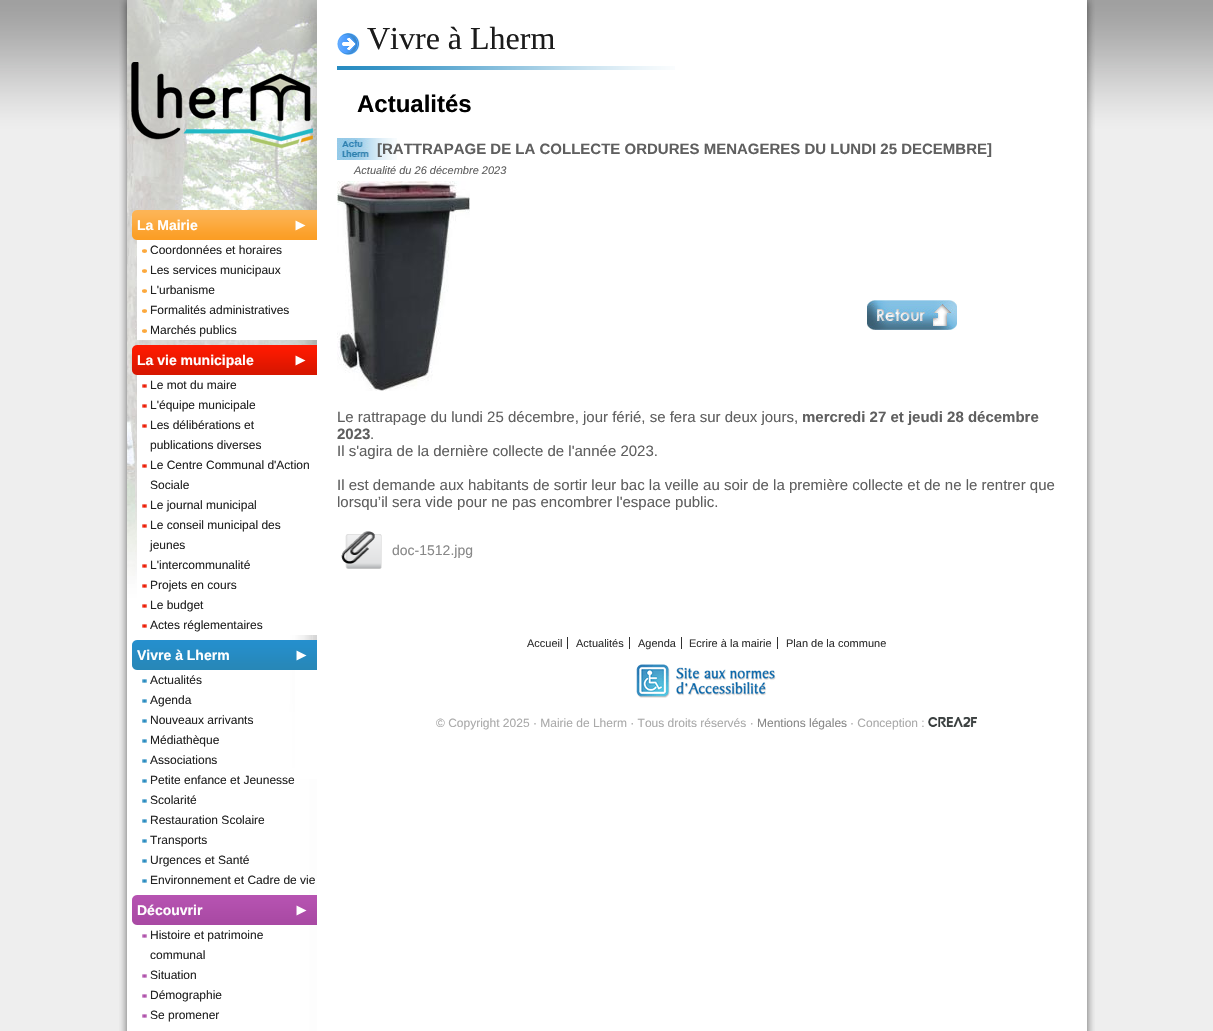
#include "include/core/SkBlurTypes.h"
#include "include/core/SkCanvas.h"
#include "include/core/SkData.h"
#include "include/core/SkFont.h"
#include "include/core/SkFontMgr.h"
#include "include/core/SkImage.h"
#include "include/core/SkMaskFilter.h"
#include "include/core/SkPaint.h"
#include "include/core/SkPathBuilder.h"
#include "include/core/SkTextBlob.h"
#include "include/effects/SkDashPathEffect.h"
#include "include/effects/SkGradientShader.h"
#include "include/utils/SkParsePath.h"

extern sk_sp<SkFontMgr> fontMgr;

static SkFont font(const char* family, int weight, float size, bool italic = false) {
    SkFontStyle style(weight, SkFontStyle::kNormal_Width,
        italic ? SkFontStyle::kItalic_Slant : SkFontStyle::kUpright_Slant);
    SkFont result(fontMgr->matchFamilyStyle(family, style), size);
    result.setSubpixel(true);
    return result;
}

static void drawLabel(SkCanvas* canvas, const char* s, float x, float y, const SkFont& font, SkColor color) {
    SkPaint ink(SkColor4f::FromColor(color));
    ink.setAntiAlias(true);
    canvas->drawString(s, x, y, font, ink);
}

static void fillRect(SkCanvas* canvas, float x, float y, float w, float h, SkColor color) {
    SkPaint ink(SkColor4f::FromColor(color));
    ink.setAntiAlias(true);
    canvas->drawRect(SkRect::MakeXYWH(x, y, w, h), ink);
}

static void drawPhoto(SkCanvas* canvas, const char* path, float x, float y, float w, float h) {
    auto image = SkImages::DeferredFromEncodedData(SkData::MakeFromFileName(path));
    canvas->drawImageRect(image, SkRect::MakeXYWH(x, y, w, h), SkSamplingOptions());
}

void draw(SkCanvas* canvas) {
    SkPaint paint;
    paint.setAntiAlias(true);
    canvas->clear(0xFFEEEEEE);
    drawPhoto(canvas, "assets/img1.png", 119, 130, 976, 901);
    drawPhoto(canvas, "assets/img2.png", 0, 0, 1213, 130);
    drawPhoto(canvas, "assets/img3.png", 119, 0, 976, 130);
    drawPhoto(canvas, "assets/img4.png", 127, 0, 190, 779);
    drawPhoto(canvas, "assets/img5.png", 131, 62, 182, 87);
    drawPhoto(canvas, "assets/img6.png", 132, 210, 185, 30);
    SkFont font1 = font("Liberation Sans", 700, 14);
    drawLabel(canvas, "La Mairie", 137, 230, font1, 0xFFFFFFFF);
    fillRect(canvas, 137, 240, 180, 100, 0xFFFFFFFF);
    drawPhoto(canvas, "assets/img7.png", 142, 249, 5, 4);
    SkFont font2 = font("Liberation Sans", 400, 12);
    drawLabel(canvas, "Coordonnées et horaires", 150, 254, font2, 0xFF222222);
    drawPhoto(canvas, "assets/img7.png", 142, 269, 5, 4);
    drawLabel(canvas, "Les services municipaux", 150, 274, font2, 0xFF222222);
    drawPhoto(canvas, "assets/img7.png", 142, 289, 5, 4);
    drawLabel(canvas, "L'urbanisme", 150, 294, font2, 0xFF222222);
    drawPhoto(canvas, "assets/img7.png", 142, 309, 5, 4);
    drawLabel(canvas, "Formalités administratives", 150, 314, font2, 0xFF222222);
    drawPhoto(canvas, "assets/img7.png", 142, 329, 5, 4);
    drawLabel(canvas, "Marchés publics", 150, 334, font2, 0xFF222222);
    drawPhoto(canvas, "assets/img8.png", 132, 345, 185, 30);
    drawLabel(canvas, "La vie municipale", 137, 365, font1, 0xFFFFFFFF);
    fillRect(canvas, 137, 375, 180, 260, 0xFFFFFFFF);
    drawPhoto(canvas, "assets/img9.png", 142, 384, 5, 4);
    drawLabel(canvas, "Le mot du maire", 150, 389, font2, 0xFF222222);
    drawPhoto(canvas, "assets/img9.png", 142, 404, 5, 4);
    drawLabel(canvas, "L'équipe municipale", 150, 409, font2, 0xFF222222);
    drawPhoto(canvas, "assets/img9.png", 142, 424, 5, 4);
    drawLabel(canvas, "Les délibérations et", 150, 429, font2, 0xFF222222);
    drawLabel(canvas, "publications diverses", 150, 449, font2, 0xFF222222);
    drawPhoto(canvas, "assets/img9.png", 142, 464, 5, 4);
    drawLabel(canvas, "Le Centre Communal d'Action", 150, 469, font2, 0xFF222222);
    drawLabel(canvas, "Sociale", 150, 489, font2, 0xFF222222);
    drawPhoto(canvas, "assets/img9.png", 142, 504, 5, 4);
    drawLabel(canvas, "Le journal municipal", 150, 509, font2, 0xFF222222);
    drawPhoto(canvas, "assets/img9.png", 142, 524, 5, 4);
    drawLabel(canvas, "Le conseil municipal des", 150, 529, font2, 0xFF222222);
    drawLabel(canvas, "jeunes", 150, 549, font2, 0xFF222222);
    drawPhoto(canvas, "assets/img9.png", 142, 564, 5, 4);
    drawLabel(canvas, "L'intercommunalité", 150, 569, font2, 0xFF222222);
    drawPhoto(canvas, "assets/img9.png", 142, 584, 5, 4);
    drawLabel(canvas, "Projets en cours", 150, 589, font2, 0xFF222222);
    drawPhoto(canvas, "assets/img9.png", 142, 604, 5, 4);
    drawLabel(canvas, "Le budget", 150, 609, font2, 0xFF222222);
    drawPhoto(canvas, "assets/img9.png", 142, 624, 5, 4);
    drawLabel(canvas, "Actes réglementaires", 150, 629, font2, 0xFF222222);
    drawPhoto(canvas, "assets/img10.png", 132, 640, 185, 30);
    drawLabel(canvas, "Vivre à Lherm", 137, 660, font1, 0xFFFFFFFF);
    fillRect(canvas, 295, 670, 22, 109, 0xFFFFFFFF);
    drawPhoto(canvas, "assets/img11.png", 142, 679, 5, 4);
    drawLabel(canvas, "Actualités", 150, 684, font2, 0xFF222222);
    drawPhoto(canvas, "assets/img11.png", 142, 699, 5, 4);
    drawLabel(canvas, "Agenda", 150, 704, font2, 0xFF222222);
    drawPhoto(canvas, "assets/img11.png", 142, 719, 5, 4);
    drawLabel(canvas, "Nouveaux arrivants", 150, 724, font2, 0xFF222222);
    drawPhoto(canvas, "assets/img11.png", 142, 739, 5, 4);
    drawLabel(canvas, "Médiathèque", 150, 744, font2, 0xFF222222);
    drawPhoto(canvas, "assets/img11.png", 142, 759, 5, 4);
    drawLabel(canvas, "Associations", 150, 764, font2, 0xFF222222);
    drawPhoto(canvas, "assets/img11.png", 142, 779, 5, 4);
    drawLabel(canvas, "Petite enfance et Jeunesse", 150, 784, font2, 0xFF222222);
    drawPhoto(canvas, "assets/img11.png", 142, 799, 5, 4);
    drawLabel(canvas, "Scolarité", 150, 804, font2, 0xFF222222);
    drawPhoto(canvas, "assets/img11.png", 142, 819, 5, 4);
    drawLabel(canvas, "Restauration Scolaire", 150, 824, font2, 0xFF222222);
    drawPhoto(canvas, "assets/img11.png", 142, 839, 5, 4);
    drawLabel(canvas, "Transports", 150, 844, font2, 0xFF222222);
    drawPhoto(canvas, "assets/img11.png", 142, 859, 5, 4);
    drawLabel(canvas, "Urgences et Santé", 150, 864, font2, 0xFF222222);
    drawPhoto(canvas, "assets/img11.png", 142, 879, 5, 4);
    drawLabel(canvas, "Environnement et Cadre de vie", 150, 884, font2, 0xFF222222);
    drawPhoto(canvas, "assets/img12.png", 132, 895, 185, 30);
    drawLabel(canvas, "Découvrir", 137, 915, font1, 0xFFFFFFFF);
    drawPhoto(canvas, "assets/img13.png", 142, 934, 5, 4);
    drawLabel(canvas, "Histoire et patrimoine", 150, 939, font2, 0xFF222222);
    drawLabel(canvas, "communal", 150, 959, font2, 0xFF222222);
    drawPhoto(canvas, "assets/img13.png", 142, 974, 5, 4);
    drawLabel(canvas, "Situation", 150, 979, font2, 0xFF222222);
    drawPhoto(canvas, "assets/img13.png", 142, 994, 5, 4);
    drawLabel(canvas, "Démographie", 150, 999, font2, 0xFF222222);
    drawPhoto(canvas, "assets/img13.png", 142, 1014, 5, 4);
    drawLabel(canvas, "Se promener", 150, 1019, font2, 0xFF222222);
    drawPhoto(canvas, "assets/img14.png", 337, 33, 338, 37);
    SkFont font3 = font("Liberation Serif", 400, 32);
    drawLabel(canvas, "Vivre à Lherm", 367, 49, font3, 0xFF1B1B1B);
    SkFont font4 = font("Liberation Sans", 700, 24);
    drawLabel(canvas, "Actualités", 357, 112, font4, 0xFF000000);
    drawPhoto(canvas, "assets/img15.png", 337, 138, 60, 22);
    SkFont font5 = font("Liberation Sans", 700, 15);
    drawLabel(canvas, "[RATTRAPAGE DE LA COLLECTE ORDURES MENAGERES DU LUNDI 25 DECEMBRE]", 377, 154, font5, 0xFF5F5F5F);
    SkFont font6 = font("Liberation Sans", 400, 11, true);
    drawLabel(canvas, "Actualité du 26 décembre 2023", 354, 174, font6, 0xFF5F5F5F);
    drawPhoto(canvas, "assets/img16.png", 867, 300, 90, 30);
    drawPhoto(canvas, "assets/img17.png", 337, 181, 133, 210);
    SkFont font7 = font("Liberation Sans", 400, 15);
    drawLabel(canvas, "Le rattrapage du lundi 25 décembre, jour férié, se fera sur deux jours,", 337, 422, font7, 0xFF5F5F5F);
    drawLabel(canvas, "mercredi 27 et jeudi 28 décembre", 802, 422, font5, 0xFF5F5F5F);
    drawLabel(canvas, "2023", 337, 439, font5, 0xFF5F5F5F);
    drawLabel(canvas, ".", 370, 439, font7, 0xFF5F5F5F);
    drawLabel(canvas, "Il s'agira de la dernière collecte de l'année 2023.", 337, 456, font7, 0xFF5F5F5F);
    drawLabel(canvas, "Il est demande aux habitants de sortir leur bac la veille au soir de la première collecte et de ne le rentrer que", 337, 490, font7, 0xFF5F5F5F);
    drawLabel(canvas, "lorsqu’il sera vide pour ne pas encombrer l'espace public.", 337, 507, font7, 0xFF5F5F5F);
    drawPhoto(canvas, "assets/img18.png", 341, 531, 41, 38);
    SkFont font8 = font("Liberation Sans", 400, 14);
    drawLabel(canvas, "doc-1512.jpg", 392, 555, font8, 0xFF888888);
    SkFont font9 = font("Liberation Sans", 400, 11);
    drawLabel(canvas, "Accueil", 527, 647, font9, 0xFF313131);
    fillRect(canvas, 567, 637, 1, 12, 0xFF313131);
    drawLabel(canvas, "Actualités", 576, 647, font9, 0xFF313131);
    fillRect(canvas, 629, 637, 1, 12, 0xFF313131);
    drawLabel(canvas, "Agenda", 638, 647, font9, 0xFF313131);
    fillRect(canvas, 681, 637, 1, 12, 0xFF313131);
    drawLabel(canvas, "Ecrire à la mairie", 689, 647, font9, 0xFF313131);
    fillRect(canvas, 777, 637, 1, 12, 0xFF313131);
    drawLabel(canvas, "Plan de la commune", 786, 647, font9, 0xFF313131);
    drawPhoto(canvas, "assets/img19.png", 636, 664, 140, 34);
    drawLabel(canvas, "© Copyright 2025 · Mairie de Lherm · Tous droits réservés ·", 436, 727, font2, 0xFFAAAAAA);
    drawLabel(canvas, "Mentions légales", 757, 727, font2, 0xFF888888);
    drawLabel(canvas, "· Conception :", 850, 727, font2, 0xFFAAAAAA);
    drawPhoto(canvas, "assets/img20.png", 928, 717, 49, 10);
}
